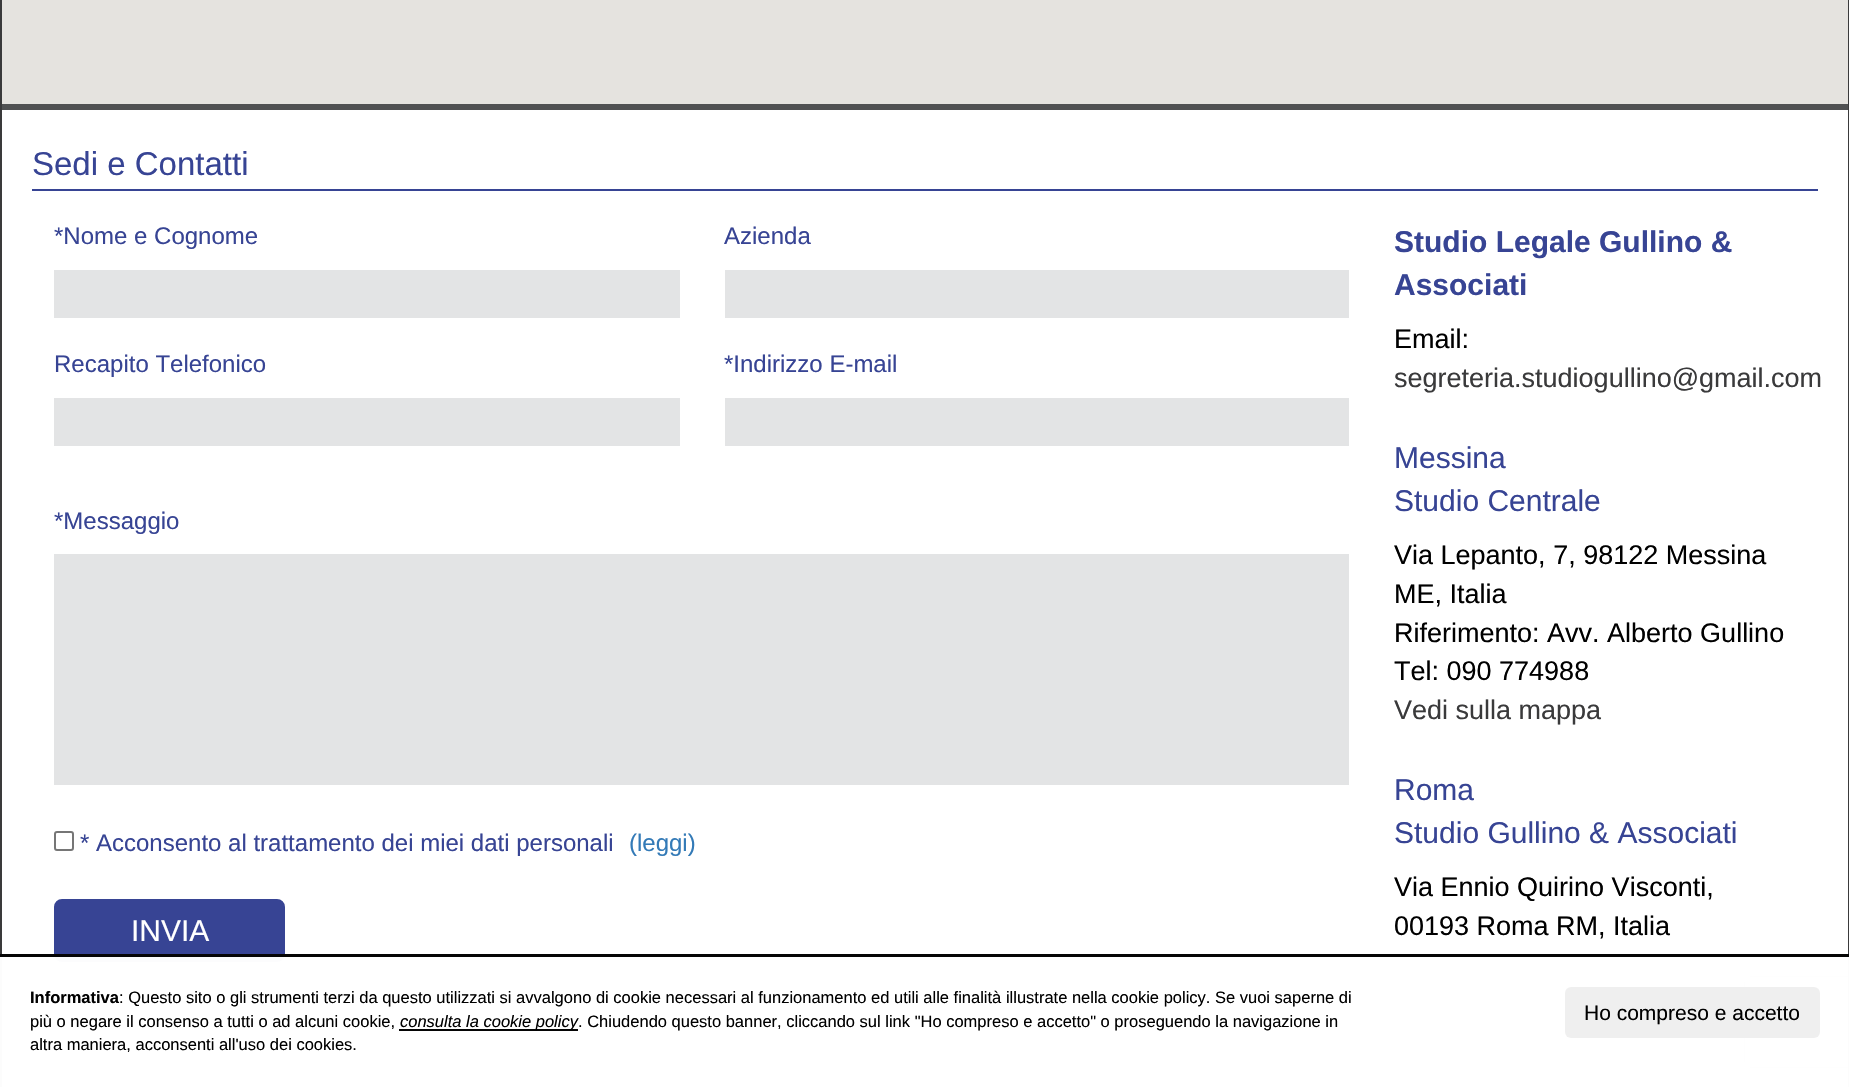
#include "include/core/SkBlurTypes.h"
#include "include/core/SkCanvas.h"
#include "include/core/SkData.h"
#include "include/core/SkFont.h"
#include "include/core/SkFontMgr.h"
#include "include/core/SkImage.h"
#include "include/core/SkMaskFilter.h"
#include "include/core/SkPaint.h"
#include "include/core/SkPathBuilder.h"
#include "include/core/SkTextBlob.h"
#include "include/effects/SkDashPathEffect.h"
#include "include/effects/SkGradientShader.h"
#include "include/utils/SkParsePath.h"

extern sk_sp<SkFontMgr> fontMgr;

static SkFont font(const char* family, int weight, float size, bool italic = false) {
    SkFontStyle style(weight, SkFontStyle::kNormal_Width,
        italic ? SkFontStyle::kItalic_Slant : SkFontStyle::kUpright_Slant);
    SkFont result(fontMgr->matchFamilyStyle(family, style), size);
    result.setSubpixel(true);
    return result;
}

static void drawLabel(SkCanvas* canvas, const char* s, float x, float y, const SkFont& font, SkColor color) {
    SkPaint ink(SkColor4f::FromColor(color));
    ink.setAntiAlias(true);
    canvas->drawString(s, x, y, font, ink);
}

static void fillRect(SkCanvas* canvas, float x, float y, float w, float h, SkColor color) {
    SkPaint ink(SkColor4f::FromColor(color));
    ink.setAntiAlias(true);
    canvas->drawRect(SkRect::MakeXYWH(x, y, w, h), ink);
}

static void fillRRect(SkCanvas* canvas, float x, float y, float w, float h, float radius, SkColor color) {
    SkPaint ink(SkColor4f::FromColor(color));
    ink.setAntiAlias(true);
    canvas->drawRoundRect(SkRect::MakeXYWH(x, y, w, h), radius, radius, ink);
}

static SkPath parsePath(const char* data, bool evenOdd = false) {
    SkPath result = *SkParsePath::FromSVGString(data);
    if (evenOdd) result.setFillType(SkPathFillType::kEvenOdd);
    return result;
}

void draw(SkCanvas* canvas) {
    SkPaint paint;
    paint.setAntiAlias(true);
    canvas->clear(0xFFFFFFFF);
    paint.setStroke(true);
    paint.setStrokeWidth(2);
    paint.setColor(0xFF3A3A3B);
    canvas->drawRect(SkRect::MakeXYWH(1, -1, 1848, 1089), paint);
    fillRect(canvas, 2, 104, 1846, 6, 0xFF505152);
    fillRect(canvas, 2, 0, 1846, 104, 0xFFE5E3DF);
    fillRect(canvas, 32, 189, 1786, 2, 0xFF374494);
    SkFont font1 = font("Liberation Sans", 400, 33);
    drawLabel(canvas, "Sedi e Contatti", 32, 175, font1, 0xFF374494);
    SkFont font2 = font("Liberation Sans", 400, 24);
    drawLabel(canvas, "*Nome e Cognome", 54, 244, font2, 0xFF374494);
    fillRect(canvas, 54, 270, 626, 48, 0xFFE3E4E5);
    drawLabel(canvas, "Azienda", 724, 244, font2, 0xFF374494);
    fillRect(canvas, 725, 270, 624, 48, 0xFFE3E4E5);
    drawLabel(canvas, "Recapito Telefonico", 54, 372, font2, 0xFF374494);
    fillRect(canvas, 54, 398, 626, 48, 0xFFE3E4E5);
    drawLabel(canvas, "*Indirizzo E-mail", 724, 372, font2, 0xFF374494);
    fillRect(canvas, 725, 398, 624, 48, 0xFFE3E4E5);
    drawLabel(canvas, "*Messaggio", 54, 529, font2, 0xFF374494);
    fillRect(canvas, 54, 554, 1295, 231, 0xFFE3E4E5);
    paint.setColor(0xFF767676);
    canvas->drawRoundRect(SkRect::MakeXYWH(55, 832, 18, 18), 2, 2, paint);
    drawLabel(canvas, "* Acconsento al trattamento dei miei dati personali", 80, 851, font2, 0xFF374494);
    drawLabel(canvas, "(leggi)", 629, 851, font2, 0xFF337AB7);
    paint.setStroke(false);
    paint.setColor(0xFF374494);
    canvas->drawRoundRect(SkRect::MakeXYWH(55, 900, 229, 61), 7, 7, paint);
    paint.setStroke(true);
    canvas->drawRoundRect(SkRect::MakeXYWH(55, 900, 229, 61), 7, 7, paint);
    SkFont font3 = font("Liberation Sans", 400, 30);
    drawLabel(canvas, "INVIA", 131, 941, font3, 0xFFFFFFFF);
    canvas->save();
    canvas->clipPath(parsePath("M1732 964H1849V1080H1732ZM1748 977H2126C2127.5 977 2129 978.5 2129 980V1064C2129 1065.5 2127.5 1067 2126 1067H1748C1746.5 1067 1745 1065.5 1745 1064V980C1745 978.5 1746.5 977 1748 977Z", true), true);
    paint.setStroke(false);
    paint.setColor(0xFF808080);
    paint.setMaskFilter(SkMaskFilter::MakeBlur(kNormal_SkBlurStyle, 4));
    canvas->drawRoundRect(SkRect::MakeXYWH(1745, 977, 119, 90), 3, 3, paint);
    paint.setMaskFilter(nullptr);
    canvas->restore();
    SkFont font4 = font("Liberation Sans", 700, 30);
    drawLabel(canvas, "Studio Legale Gullino &", 1394, 252, font4, 0xFF374494);
    drawLabel(canvas, "Associati", 1394, 295, font4, 0xFF374494);
    SkFont font5 = font("Liberation Sans", 400, 27);
    drawLabel(canvas, "Email:", 1394, 348, font5, 0xFF000000);
    drawLabel(canvas, "segreteria.studiogullino@gmail.com", 1394, 387, font5, 0xFF3A3A3B);
    drawLabel(canvas, "Messina", 1394, 468, font3, 0xFF374494);
    drawLabel(canvas, "Studio Centrale", 1394, 511, font3, 0xFF374494);
    drawLabel(canvas, "Via Lepanto, 7, 98122 Messina", 1394, 564, font5, 0xFF000000);
    drawLabel(canvas, "ME, Italia", 1394, 603, font5, 0xFF000000);
    drawLabel(canvas, "Riferimento: Avv. Alberto Gullino", 1394, 642, font5, 0xFF000000);
    drawLabel(canvas, "Tel: 090 774988", 1394, 680, font5, 0xFF000000);
    drawLabel(canvas, "Vedi sulla mappa", 1394, 719, font5, 0xFF3A3A3B);
    drawLabel(canvas, "Roma", 1394, 800, font3, 0xFF374494);
    drawLabel(canvas, "Studio Gullino & Associati", 1394, 843, font3, 0xFF374494);
    drawLabel(canvas, "Via Ennio Quirino Visconti,", 1394, 896, font5, 0xFF000000);
    drawLabel(canvas, "00193 Roma RM, Italia", 1394, 935, font5, 0xFF000000);
    fillRect(canvas, 0, 954, 1849, 133, 0xFAFFFFFF);
    fillRect(canvas, 0, 954, 1849, 3, 0xFA000000);
    SkFont font6 = font("Liberation Sans", 700, 16.5f);
    drawLabel(canvas, "Informativa", 30, 1003, font6, 0xFF000000);
    SkFont font7 = font("Liberation Sans", 400, 16.5f);
    drawLabel(canvas, ": Questo sito o gli strumenti terzi da questo utilizzati si avvalgono di cookie necessari al funzionamento ed utili alle finalità illustrate nella cookie policy. Se vuoi saperne di", 119, 1003, font7, 0xFF000000);
    drawLabel(canvas, "più o negare il consenso a tutti o ad alcuni cookie,", 30, 1027, font7, 0xFF000000);
    fillRect(canvas, 399, 1029, 179, 2, 0xFF050505);
    SkFont font8 = font("Liberation Sans", 400, 16.5f, true);
    drawLabel(canvas, "consulta la cookie policy", 400, 1027, font8, 0xFF000000);
    drawLabel(canvas, ". Chiudendo questo banner, cliccando sul link \"Ho compreso e accetto\" o proseguendo la navigazione in", 578, 1027, font7, 0xFF000000);
    drawLabel(canvas, "altra maniera, acconsenti all'uso dei cookies.", 30, 1050, font7, 0xFF000000);
    fillRRect(canvas, 1565, 987, 255, 51, 6, 0xFAEFEFEF);
    SkFont font9 = font("Liberation Sans", 400, 21);
    drawLabel(canvas, "Ho compreso e accetto", 1584, 1020, font9, 0xFF000000);
}
